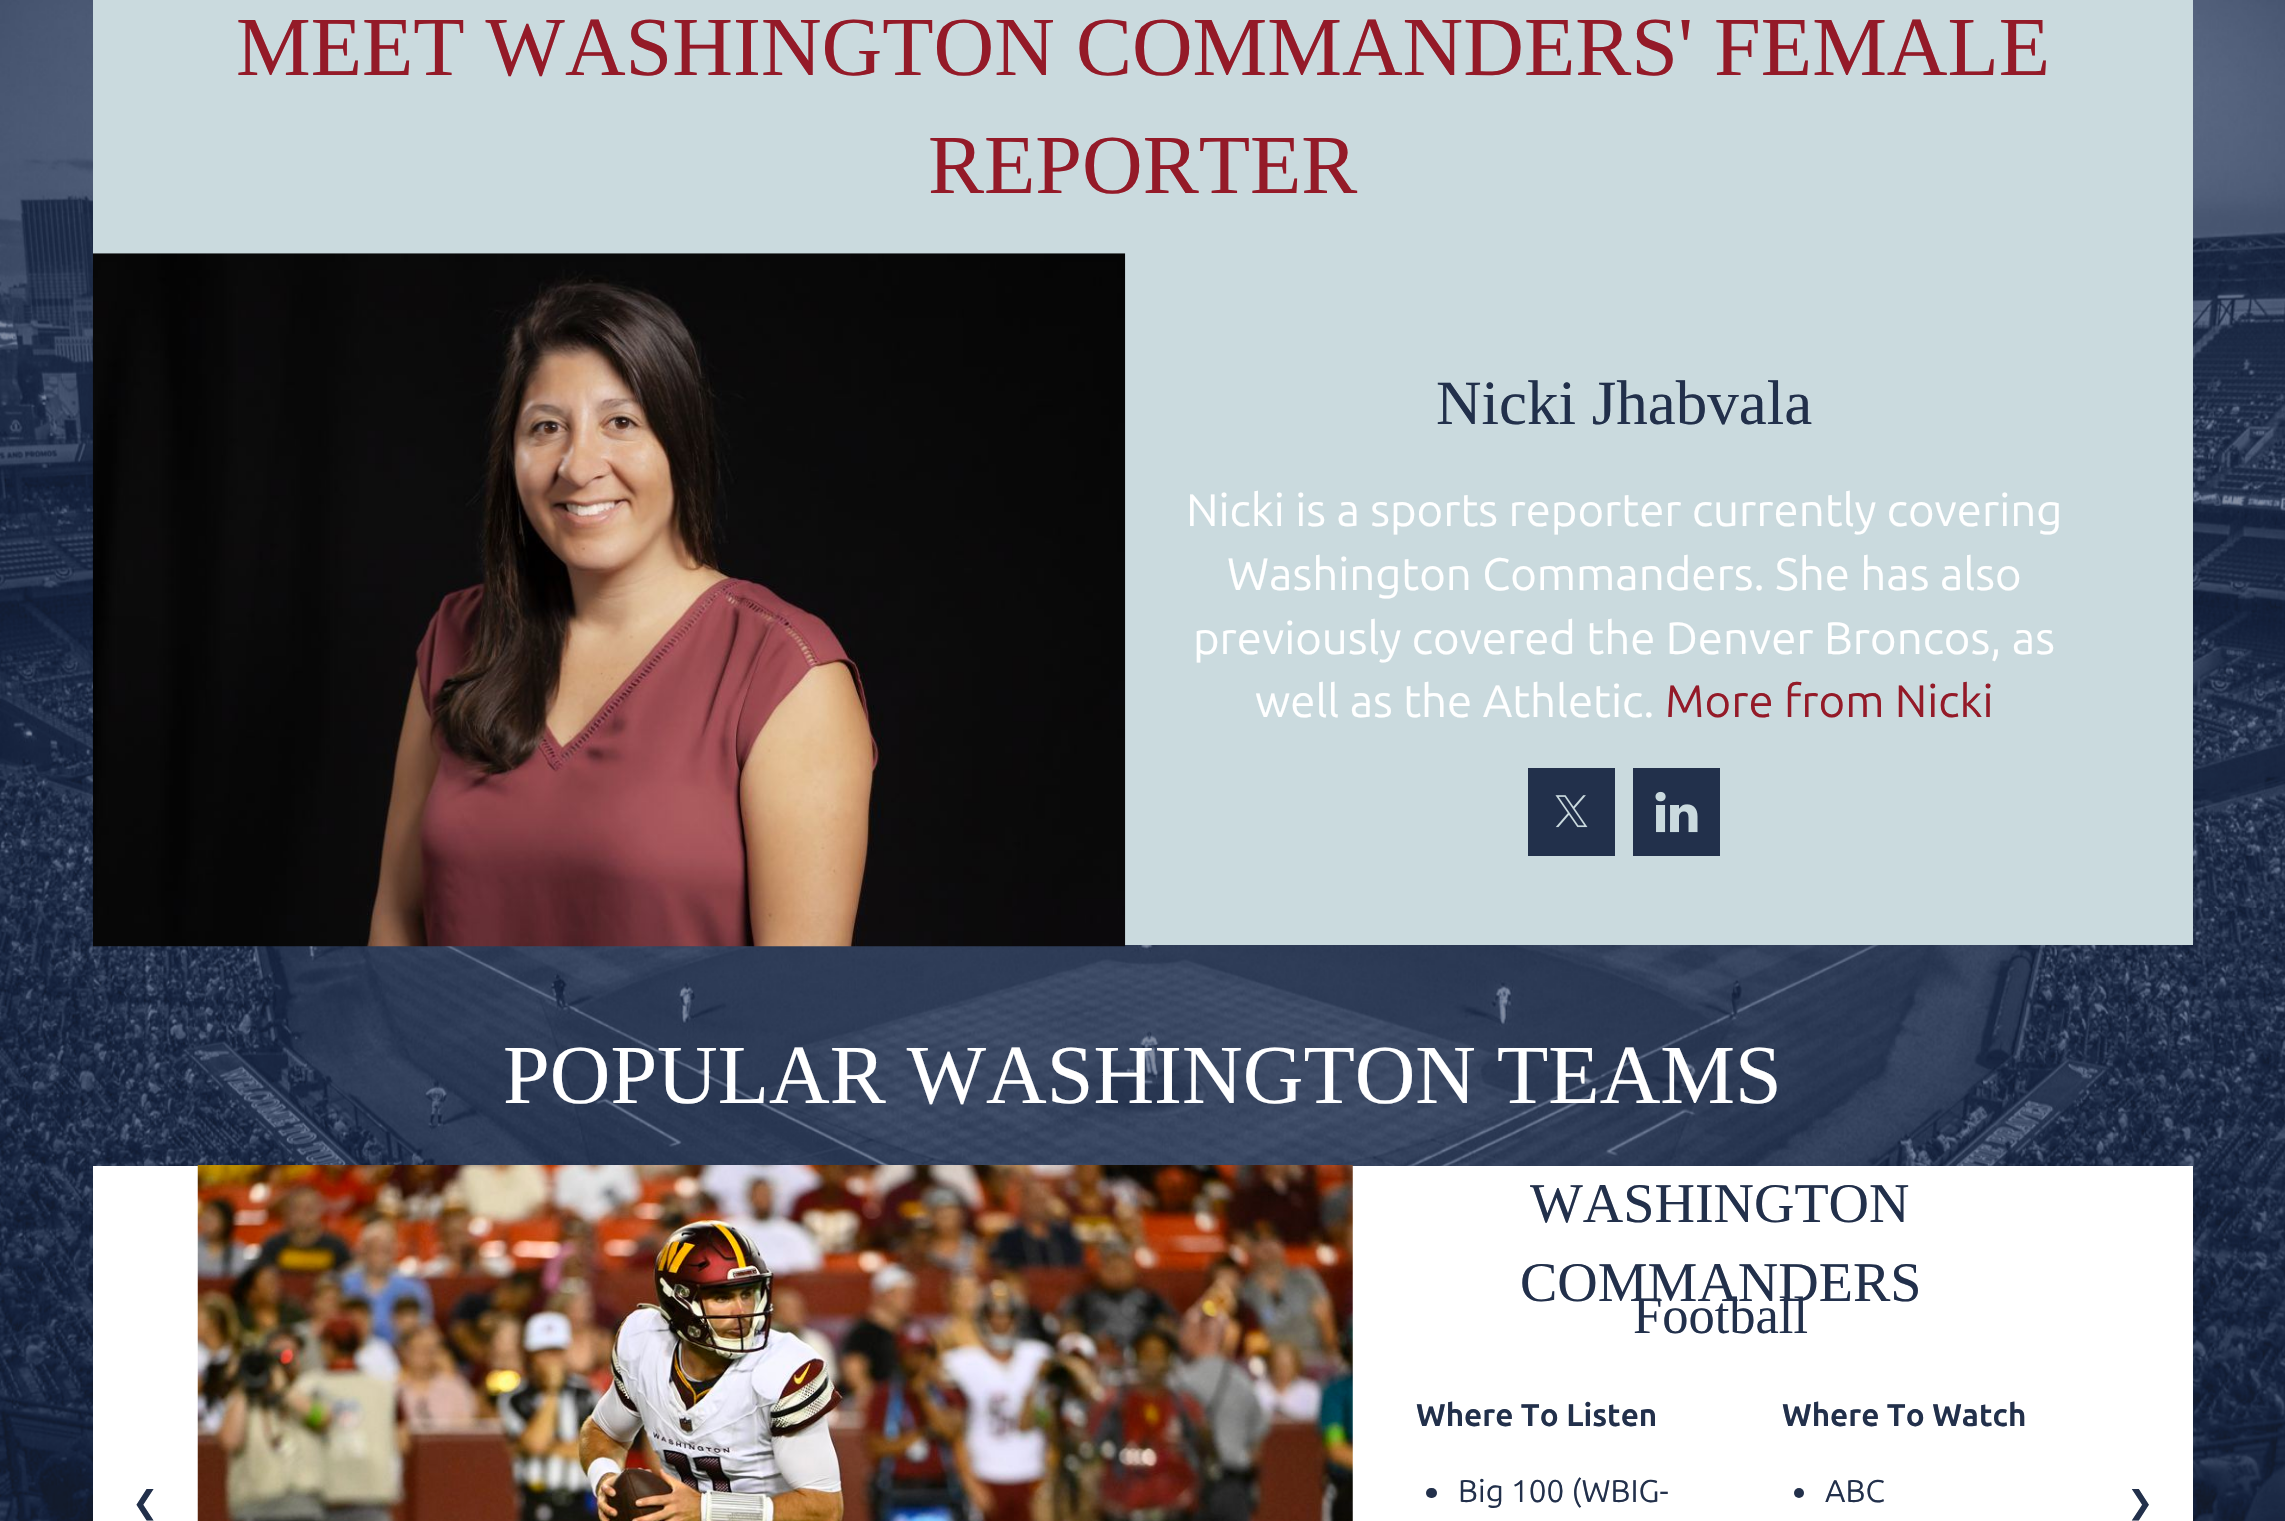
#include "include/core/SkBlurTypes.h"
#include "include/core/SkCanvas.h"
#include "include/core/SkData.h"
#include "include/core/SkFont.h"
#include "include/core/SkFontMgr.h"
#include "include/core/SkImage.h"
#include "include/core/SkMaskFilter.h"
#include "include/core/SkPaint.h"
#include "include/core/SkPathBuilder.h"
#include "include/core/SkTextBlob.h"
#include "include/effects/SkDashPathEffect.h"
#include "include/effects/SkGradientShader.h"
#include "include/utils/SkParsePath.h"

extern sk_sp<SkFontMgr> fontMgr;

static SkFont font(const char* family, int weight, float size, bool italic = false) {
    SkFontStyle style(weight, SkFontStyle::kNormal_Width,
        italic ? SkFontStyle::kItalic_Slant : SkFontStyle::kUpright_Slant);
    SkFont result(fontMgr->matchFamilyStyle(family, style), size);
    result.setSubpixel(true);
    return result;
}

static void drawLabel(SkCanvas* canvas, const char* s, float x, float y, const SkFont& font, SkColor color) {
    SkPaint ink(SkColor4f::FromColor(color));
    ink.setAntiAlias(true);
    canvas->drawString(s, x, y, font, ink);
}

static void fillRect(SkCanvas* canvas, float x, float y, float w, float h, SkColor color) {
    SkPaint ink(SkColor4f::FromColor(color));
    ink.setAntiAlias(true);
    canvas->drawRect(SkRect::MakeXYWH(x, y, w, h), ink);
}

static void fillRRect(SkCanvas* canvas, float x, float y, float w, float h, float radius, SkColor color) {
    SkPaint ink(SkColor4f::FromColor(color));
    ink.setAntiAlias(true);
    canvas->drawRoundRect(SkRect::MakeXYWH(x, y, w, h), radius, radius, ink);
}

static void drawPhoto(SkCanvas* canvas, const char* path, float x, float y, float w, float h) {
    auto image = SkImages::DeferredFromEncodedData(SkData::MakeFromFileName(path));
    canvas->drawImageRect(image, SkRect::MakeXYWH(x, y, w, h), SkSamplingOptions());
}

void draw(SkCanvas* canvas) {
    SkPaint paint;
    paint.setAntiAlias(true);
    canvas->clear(0xFFFFFFFF);
    drawPhoto(canvas, "assets/img1.png", 0, 0, 2285, 1521);
    fillRect(canvas, 93, 0, 2100, 254, 0xFFCADADE);
    SkFont font1 = font("Liberation Serif", 400, 84);
    drawLabel(canvas, "MEET WASHINGTON COMMANDERS' FEMALE", 236, 75, font1, 0xFF941A28);
    drawLabel(canvas, "REPORTER", 928, 193, font1, 0xFF941A28);
    fillRect(canvas, 1125, 254, 1068, 691, 0xFFCADADE);
    drawPhoto(canvas, "assets/img2.png", 92, 253, 1034, 694);
    SkFont font2 = font("Liberation Serif", 400, 63);
    drawLabel(canvas, "Nicki Jhabvala", 1436, 424, font2, 0xFF22304B);
    SkFont font3 = font("Ubuntu", 400, 45.5f);
    drawLabel(canvas, "Nicki is a sports reporter currently covering", 1186, 526, font3, 0xFFFFFFFF);
    drawLabel(canvas, "Washington Commanders. She has also", 1227, 590, font3, 0xFFFFFFFF);
    drawLabel(canvas, "previously covered the Denver Broncos, as", 1193, 654, font3, 0xFFFFFFFF);
    drawLabel(canvas, "well as the Athletic.", 1255, 717, font3, 0xFFFFFFFF);
    drawLabel(canvas, "More from Nicki", 1665, 717, font3, 0xFF941A28);
    fillRect(canvas, 1528, 768, 87, 88, 0xFF22304B);
    drawPhoto(canvas, "assets/img3.png", 1555, 795, 33, 33);
    fillRect(canvas, 1633, 768, 87, 88, 0xFF22304B);
    drawPhoto(canvas, "assets/img4.png", 1655, 791, 43, 42);
    drawLabel(canvas, "POPULAR WASHINGTON TEAMS", 503, 1103, font1, 0xFFFFFFFF);
    fillRect(canvas, 93, 1166, 2100, 355, 0xFFFFFFFF);
    drawPhoto(canvas, "assets/img5.png", 197, 1165, 1156, 356);
    SkFont font4 = font("Liberation Serif", 400, 56);
    drawLabel(canvas, "WASHINGTON", 1530, 1222, font4, 0xFF22304B);
    drawLabel(canvas, "COMMANDERS", 1520, 1301, font4, 0xFF22304B);
    SkFont font5 = font("Liberation Serif", 400, 52.5f);
    drawLabel(canvas, "Football", 1633, 1333, font5, 0xFF22304B);
    SkFont font6 = font("DejaVu Sans", 400, 31.5f);
    drawLabel(canvas, "❮", 132, 1513, font6, 0xFF22304B);
    SkFont font7 = font("Ubuntu", 700, 31.5f);
    drawLabel(canvas, "Where To Listen", 1416, 1426, font7, 0xFF22304B);
    fillRRect(canvas, 1426, 1488, 11, 10, 5, 0xFF22304B);
    SkFont font8 = font("Ubuntu", 400, 31.5f);
    drawLabel(canvas, "Big 100 (WBIG-", 1458, 1502, font8, 0xFF22304B);
    drawLabel(canvas, "Where To Watch", 1782, 1426, font7, 0xFF22304B);
    paint.setColor(0xFF22304B);
    canvas->drawCircle(1799, 1493, 5, paint);
    drawLabel(canvas, "ABC", 1825, 1502, font8, 0xFF22304B);
    drawLabel(canvas, "❯", 2127, 1513, font6, 0xFF22304B);
}
